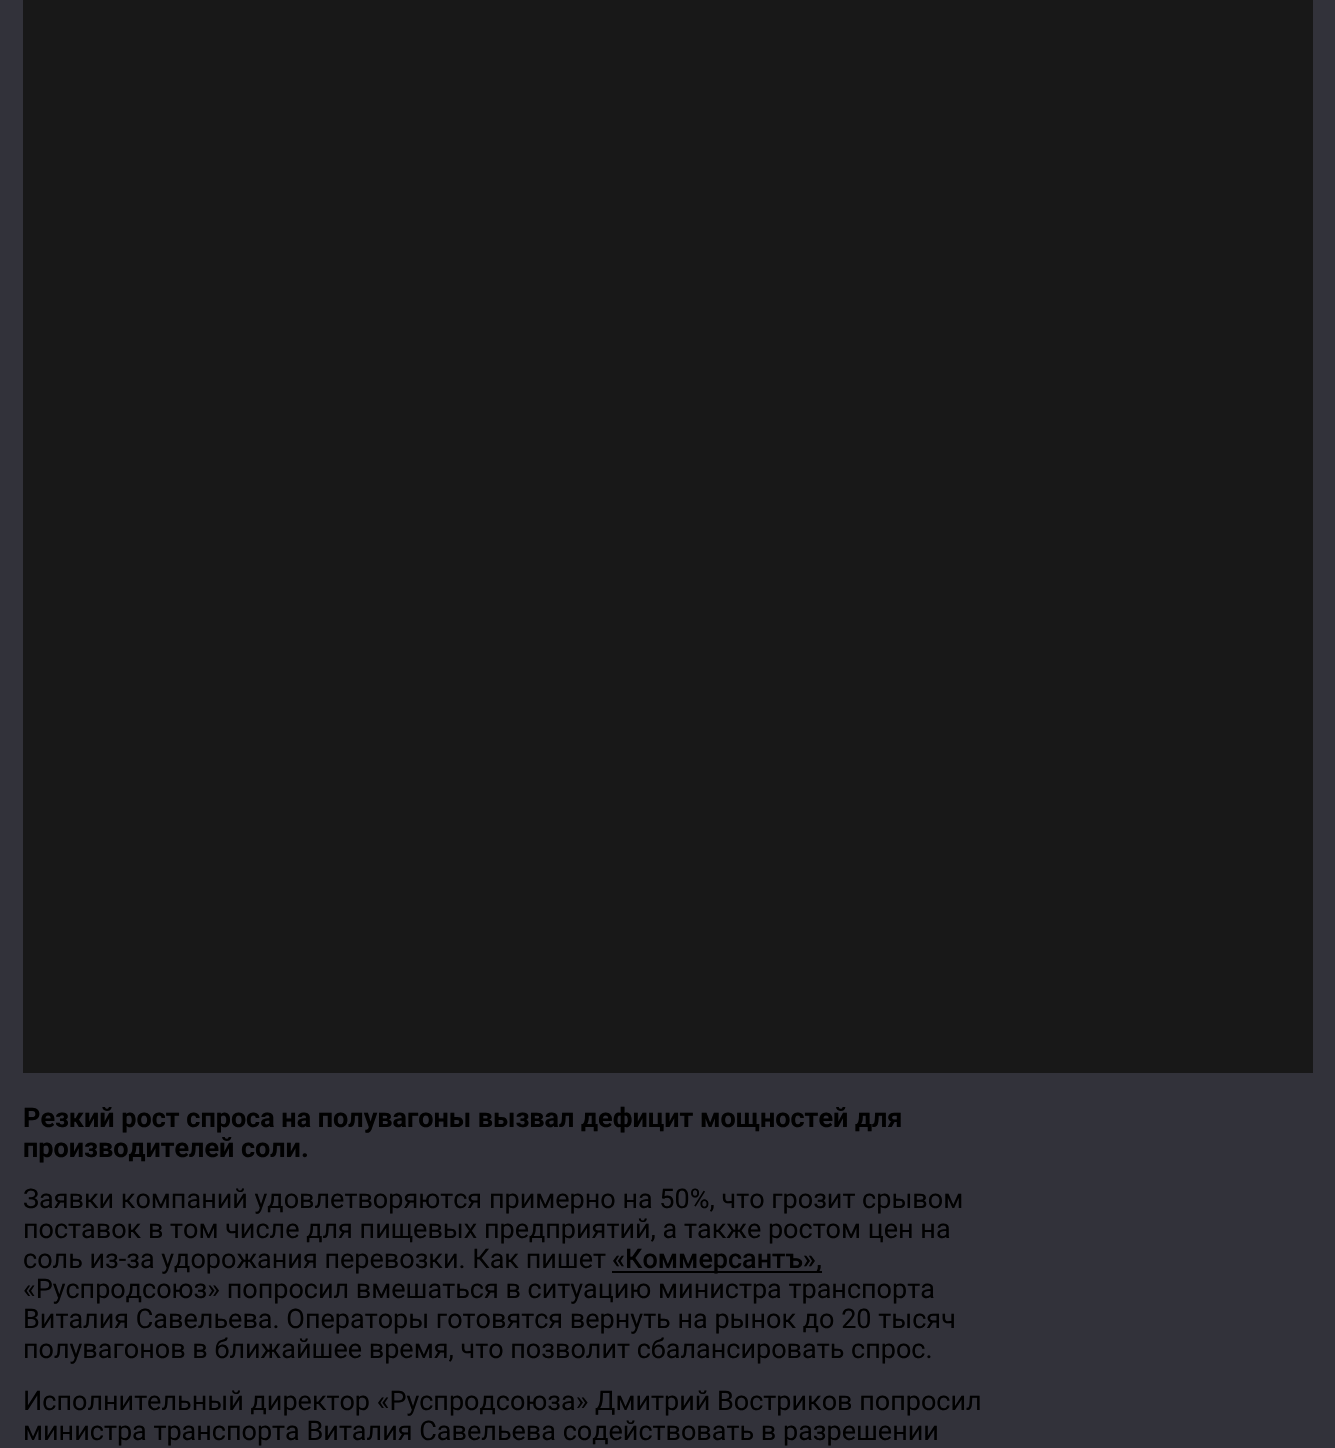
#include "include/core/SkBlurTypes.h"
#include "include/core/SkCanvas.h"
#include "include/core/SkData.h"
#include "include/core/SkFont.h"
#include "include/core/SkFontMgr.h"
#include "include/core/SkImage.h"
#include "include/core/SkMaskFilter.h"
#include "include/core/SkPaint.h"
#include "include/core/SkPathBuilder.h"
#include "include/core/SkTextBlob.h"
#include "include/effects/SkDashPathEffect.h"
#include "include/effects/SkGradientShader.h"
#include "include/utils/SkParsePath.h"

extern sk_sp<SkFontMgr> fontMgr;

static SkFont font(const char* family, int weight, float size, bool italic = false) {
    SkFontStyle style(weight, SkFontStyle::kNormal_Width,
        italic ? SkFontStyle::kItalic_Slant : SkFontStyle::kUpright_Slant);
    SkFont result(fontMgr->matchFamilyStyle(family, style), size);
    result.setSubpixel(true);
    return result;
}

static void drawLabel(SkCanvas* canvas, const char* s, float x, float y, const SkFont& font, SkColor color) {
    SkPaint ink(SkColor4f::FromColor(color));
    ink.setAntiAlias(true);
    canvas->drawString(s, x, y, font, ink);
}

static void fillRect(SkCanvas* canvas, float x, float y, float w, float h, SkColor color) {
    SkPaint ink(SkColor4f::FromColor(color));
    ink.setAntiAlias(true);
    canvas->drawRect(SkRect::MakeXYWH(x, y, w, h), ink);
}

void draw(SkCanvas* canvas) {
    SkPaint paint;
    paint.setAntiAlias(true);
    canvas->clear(0xFF32323A);
    fillRect(canvas, 23, 0, 1290, 1073, 0xFF181818);
    SkFont font1 = font("Roboto", 700, 27);
    drawLabel(canvas, "Резкий рост спроса на полувагоны вызвал дефицит мощностей для", 23, 1127, font1, 0xFF000000);
    drawLabel(canvas, "производителей соли.", 23, 1157, font1, 0xFF000000);
    SkFont font2 = font("Roboto", 400, 27);
    drawLabel(canvas, "Заявки компаний удовлетворяются примерно на 50%, что грозит срывом", 23, 1208, font2, 0xFF000000);
    drawLabel(canvas, "поставок в том числе для пищевых предприятий, а также ростом цен на", 23, 1238, font2, 0xFF000000);
    drawLabel(canvas, "соль из-за удорожания перевозки. Как пишет", 23, 1268, font2, 0xFF000000);
    fillRect(canvas, 612, 1271, 210, 2, 0xFF000000);
    SkFont font3 = font("Roboto", 500, 27);
    drawLabel(canvas, "«Коммерсантъ»,", 612, 1268, font3, 0xFF000000);
    drawLabel(canvas, "«Руспродсоюз» попросил вмешаться в ситуацию министра транспорта", 23, 1298, font2, 0xFF000000);
    drawLabel(canvas, "Виталия Савельева. Операторы готовятся вернуть на рынок до 20 тысяч", 23, 1328, font2, 0xFF000000);
    drawLabel(canvas, "полувагонов в ближайшее время, что позволит сбалансировать спрос.", 23, 1358, font2, 0xFF000000);
    drawLabel(canvas, "Исполнительный директор «Руспродсоюза» Дмитрий Востриков попросил", 23, 1410, font2, 0xFF000000);
    drawLabel(canvas, "министра транспорта Виталия Савельева содействовать в разрешении", 23, 1440, font2, 0xFF000000);
}
